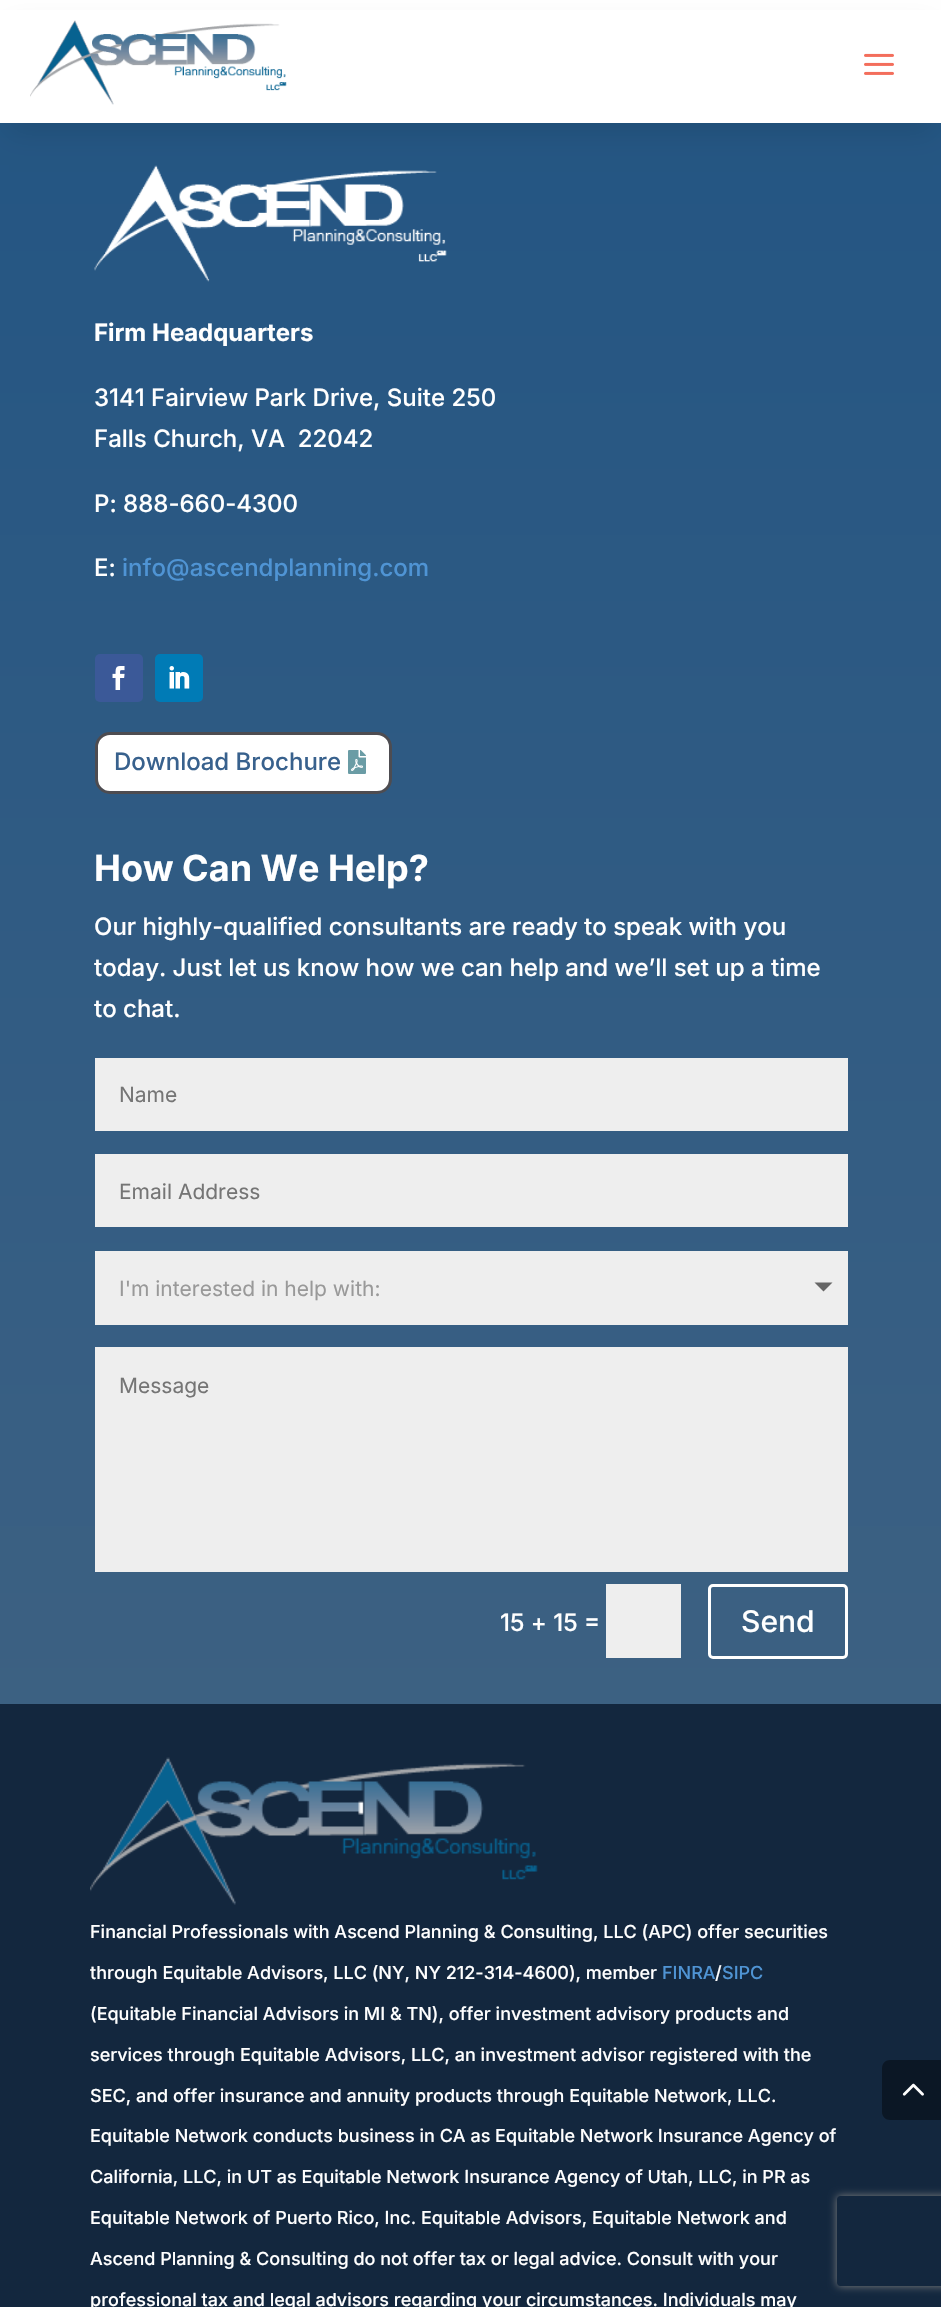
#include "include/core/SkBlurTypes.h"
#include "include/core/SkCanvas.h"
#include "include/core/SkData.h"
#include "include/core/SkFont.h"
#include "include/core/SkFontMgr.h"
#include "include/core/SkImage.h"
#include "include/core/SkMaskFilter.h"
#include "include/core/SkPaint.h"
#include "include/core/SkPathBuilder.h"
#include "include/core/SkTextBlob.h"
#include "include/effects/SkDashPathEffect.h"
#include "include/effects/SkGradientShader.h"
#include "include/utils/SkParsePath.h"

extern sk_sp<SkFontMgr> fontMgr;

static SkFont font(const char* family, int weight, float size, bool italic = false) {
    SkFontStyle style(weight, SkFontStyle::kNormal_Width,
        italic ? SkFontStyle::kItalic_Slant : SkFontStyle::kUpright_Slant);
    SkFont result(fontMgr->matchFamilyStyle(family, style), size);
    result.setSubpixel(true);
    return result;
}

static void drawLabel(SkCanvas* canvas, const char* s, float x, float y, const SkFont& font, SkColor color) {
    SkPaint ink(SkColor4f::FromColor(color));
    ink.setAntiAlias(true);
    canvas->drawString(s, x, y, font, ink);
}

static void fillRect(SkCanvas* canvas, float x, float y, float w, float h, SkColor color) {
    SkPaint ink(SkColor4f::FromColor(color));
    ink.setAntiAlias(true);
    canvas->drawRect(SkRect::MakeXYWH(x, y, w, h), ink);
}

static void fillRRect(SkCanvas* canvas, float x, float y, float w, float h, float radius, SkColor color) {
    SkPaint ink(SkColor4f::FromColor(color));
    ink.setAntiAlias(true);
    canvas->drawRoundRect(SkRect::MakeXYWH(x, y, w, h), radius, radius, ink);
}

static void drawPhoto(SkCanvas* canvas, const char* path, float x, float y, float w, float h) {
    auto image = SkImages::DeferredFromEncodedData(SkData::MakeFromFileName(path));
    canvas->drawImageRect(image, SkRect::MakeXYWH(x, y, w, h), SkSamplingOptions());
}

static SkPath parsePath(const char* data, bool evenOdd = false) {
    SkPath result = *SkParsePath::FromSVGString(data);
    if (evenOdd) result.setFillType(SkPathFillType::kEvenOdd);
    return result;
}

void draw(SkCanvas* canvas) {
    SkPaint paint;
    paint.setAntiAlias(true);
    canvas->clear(0xFFFFFFFF);
    {
        const SkColor colors[] = {0xFF2B87DA, 0xFF235583, 0xFF506A82};
        const float stops[] = {0, 0, 1};
        const SkPoint ends[] = {{471, 39}, {471, 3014}};
        paint.setShader(SkGradientShader::MakeLinear(ends, colors, stops, 3, SkTileMode::kClamp));
        paint.setAlpha(255);
    }
    canvas->drawRect(SkRect::MakeXYWH(0, 123, 941, 1581), paint);
    drawPhoto(canvas, "assets/img3.png", 94, 165, 353, 117);
    paint.setShader(nullptr);
    paint.setColor(0x1A000000);
    paint.setMaskFilter(SkMaskFilter::MakeBlur(kNormal_SkBlurStyle, 13.5f));
    canvas->drawRect(SkRect::MakeXYWH(9, 27, 924, 105), paint);
    paint.setMaskFilter(nullptr);
    fillRect(canvas, 0, 10, 941, 113, 0xFFFFFFFF);
    drawPhoto(canvas, "assets/img1.png", 30, 20, 257, 85);
    drawPhoto(canvas, "assets/img2.png", 864, 53, 30, 22);
    SkFont font1 = font("Inter", 700, 24);
    drawLabel(canvas, "Firm Headquarters", 94, 341, font1, 0xFFFFFFFF);
    SkFont font2 = font("Inter", 500, 24);
    drawLabel(canvas, "3141 Fairview Park Drive, Suite 250", 94, 406, font2, 0xFFFFFFFF);
    drawLabel(canvas, "Falls Church, VA  22042", 94, 447, font2, 0xFFFFFFFF);
    drawLabel(canvas, "P: 888-660-4300", 94, 512, font2, 0xFFFFFFFF);
    drawLabel(canvas, "E:", 94, 576, font2, 0xFFFFFFFF);
    drawLabel(canvas, "info@ascendplanning.com", 122, 576, font2, 0xFF4F94D4);
    fillRRect(canvas, 95, 654, 48, 48, 5, 0xFF3B5998);
    drawPhoto(canvas, "assets/img4.png", 112, 666, 13, 24);
    fillRRect(canvas, 155, 654, 48, 48, 5, 0xFF007BB6);
    drawPhoto(canvas, "assets/img5.png", 169, 666, 21, 23);
    paint.setColor(0xFFFFFFFF);
    canvas->drawRoundRect(SkRect::MakeXYWH(96.5f, 733.5f, 294, 59), 13.5f, 13.5f, paint);
    paint.setStroke(true);
    paint.setStrokeWidth(3);
    paint.setColor(0xFF4D4C51);
    canvas->drawRoundRect(SkRect::MakeXYWH(96.5f, 733.5f, 294, 59), 13.5f, 13.5f, paint);
    drawLabel(canvas, "Download Brochure", 114, 770, font2, 0xFF38618D);
    drawPhoto(canvas, "assets/img6.png", 348, 750, 18, 24);
    SkFont font3 = font("Inter", 700, 36);
    drawLabel(canvas, "How Can We Help?", 94, 881, font3, 0xFFFFFFFF);
    drawLabel(canvas, "Our highly-qualified consultants are ready to speak with you", 94, 935, font2, 0xFFFFFFFF);
    drawLabel(canvas, "today. Just let us know how we can help and we’ll set up a time", 94, 976, font2, 0xFFFFFFFF);
    drawLabel(canvas, "to chat.", 94, 1017, font2, 0xFFFFFFFF);
    fillRect(canvas, 95, 1058, 753, 73, 0xFFEEEEEE);
    SkFont font4 = font("Inter", 400, 21);
    drawLabel(canvas, "Name", 119, 1102, font4, 0xFF757575);
    fillRect(canvas, 95, 1154, 753, 73, 0xFFEEEEEE);
    drawLabel(canvas, "Email Address", 119, 1199, font4, 0xFF757575);
    fillRect(canvas, 95, 1251, 753, 74, 0xFFEEEEEE);
    drawLabel(canvas, "I'm interested in help with:", 119, 1296, font4, 0xFF999999);
    paint.setStroke(false);
    paint.setColor(0xFF666666);
    canvas->drawPath(parsePath("M814.5 1282.5H832.5L823.5 1291.5Z"), paint);
    fillRect(canvas, 95, 1347, 753, 225, 0xFFEEEEEE);
    drawLabel(canvas, "Message", 119, 1393, font4, 0xFF757575);
    drawLabel(canvas, "15 + 15", 500, 1631, font2, 0xFFFFFFFF);
    drawLabel(canvas, "=", 584, 1629, font2, 0xFFFFFFFF);
    fillRect(canvas, 606, 1584, 75, 74, 0xFFEEEEEE);
    paint.setStroke(true);
    paint.setColor(0xFFFFFFFF);
    canvas->drawRoundRect(SkRect::MakeXYWH(709.5f, 1585.5f, 137, 72), 3.5f, 3.5f, paint);
    SkFont font5 = font("Inter", 500, 30);
    drawLabel(canvas, "Send", 741, 1632, font5, 0xFFFFFFFF);
    fillRect(canvas, 0, 1704, 941, 603, 0xFF13273E);
    drawPhoto(canvas, "assets/img7.png", 90, 1757, 448, 148);
    SkFont font6 = font("Inter", 500, 18);
    drawLabel(canvas, "Financial Professionals with Ascend Planning & Consulting, LLC (APC) offer securities", 90, 1938, font6, 0xFFFFFFFF);
    drawLabel(canvas, "through Equitable Advisors, LLC (NY, NY 212-314-4600), member", 90, 1979, font6, 0xFFFFFFFF);
    drawLabel(canvas, "FINRA", 662, 1979, font6, 0xFF4F94D4);
    drawLabel(canvas, "/", 715, 1979, font6, 0xFFFFFFFF);
    drawLabel(canvas, "SIPC", 722, 1979, font6, 0xFF4F94D4);
    drawLabel(canvas, "(Equitable Financial Advisors in MI & TN), offer investment advisory products and", 90, 2020, font6, 0xFFFFFFFF);
    drawLabel(canvas, "services through Equitable Advisors, LLC, an investment advisor registered with the", 90, 2061, font6, 0xFFFFFFFF);
    drawLabel(canvas, "SEC, and offer insurance and annuity products through Equitable Network, LLC.", 90, 2102, font6, 0xFFFFFFFF);
    drawLabel(canvas, "Equitable Network conducts business in CA as Equitable Network Insurance Agency of", 90, 2142, font6, 0xFFFFFFFF);
    drawLabel(canvas, "California, LLC, in UT as Equitable Network Insurance Agency of Utah, LLC, in PR as", 90, 2183, font6, 0xFFFFFFFF);
    drawLabel(canvas, "Equitable Network of Puerto Rico, Inc. Equitable Advisors, Equitable Network and", 90, 2224, font6, 0xFFFFFFFF);
    drawLabel(canvas, "Ascend Planning & Consulting do not offer tax or legal advice. Consult with your", 90, 2265, font6, 0xFFFFFFFF);
    drawLabel(canvas, "professional tax and legal advisors regarding your circumstances. Individuals may", 90, 2306, font6, 0xFFFFFFFF);
    paint.setStroke(false);
    paint.setColor(0xFF0B1725);
    canvas->drawPath(parsePath("M890 2060H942V2120H890C885.5 2120 882 2116.5 882 2112V2068C882 2063.5 885.5 2060 890 2060Z"), paint);
    drawPhoto(canvas, "assets/img8.png", 902, 2083, 22, 13);
    canvas->save();
    canvas->clipPath(parsePath("M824 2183H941V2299H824ZM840 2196H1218C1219.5 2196 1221 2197.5 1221 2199V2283C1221 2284.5 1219.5 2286 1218 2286H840C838.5 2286 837 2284.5 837 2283V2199C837 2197.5 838.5 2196 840 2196Z", true), true);
    paint.setColor(0xFF808080);
    paint.setMaskFilter(SkMaskFilter::MakeBlur(kNormal_SkBlurStyle, 4));
    canvas->drawRoundRect(SkRect::MakeXYWH(837, 2196, 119, 90), 3, 3, paint);
    paint.setMaskFilter(nullptr);
    canvas->restore();
}
